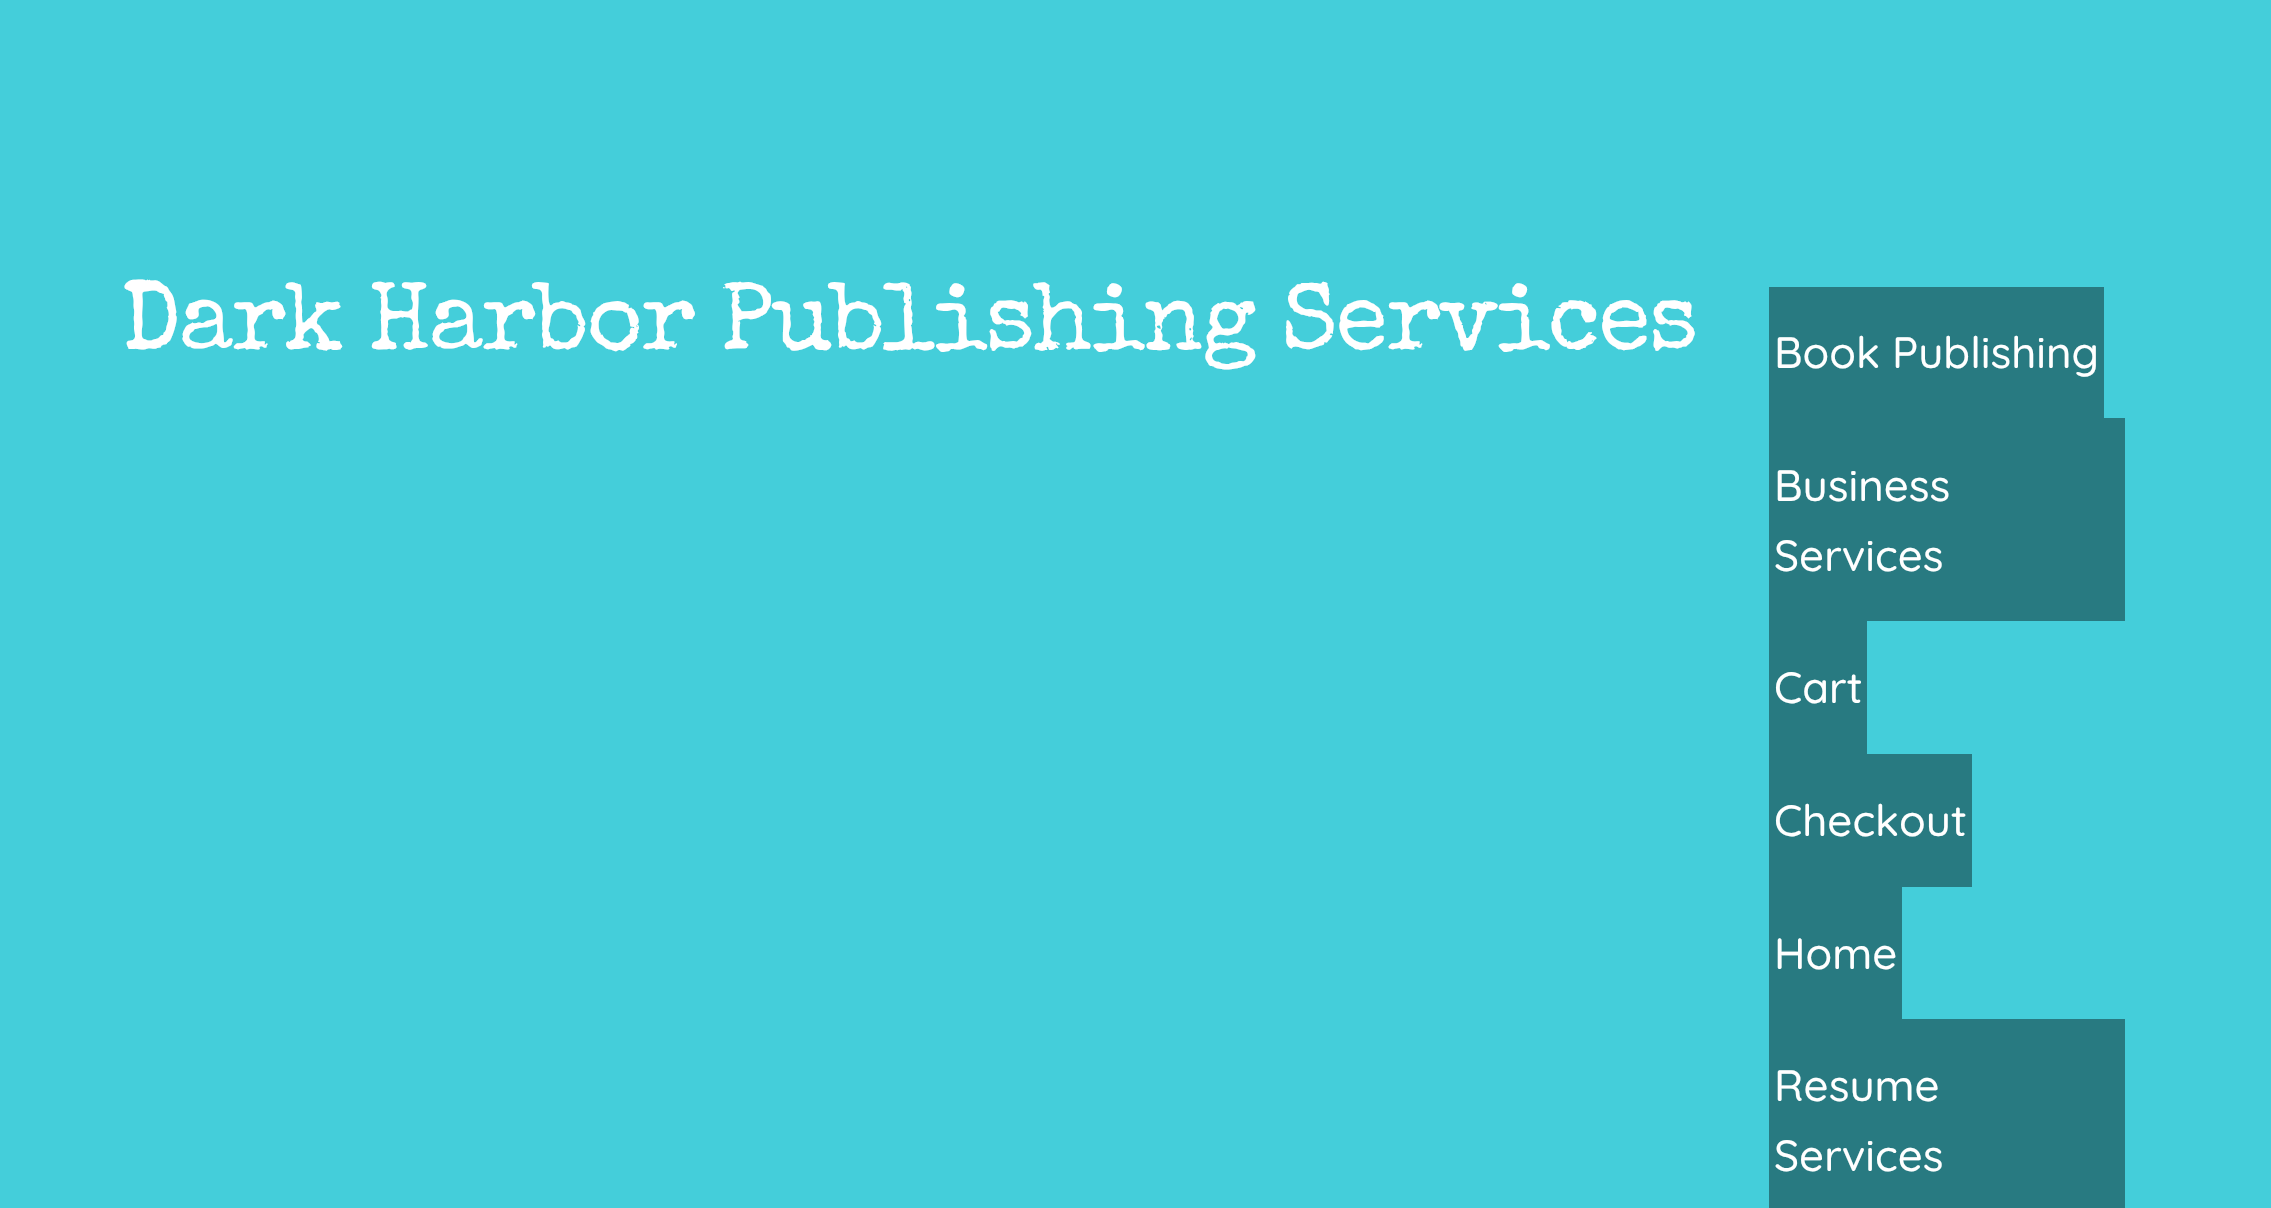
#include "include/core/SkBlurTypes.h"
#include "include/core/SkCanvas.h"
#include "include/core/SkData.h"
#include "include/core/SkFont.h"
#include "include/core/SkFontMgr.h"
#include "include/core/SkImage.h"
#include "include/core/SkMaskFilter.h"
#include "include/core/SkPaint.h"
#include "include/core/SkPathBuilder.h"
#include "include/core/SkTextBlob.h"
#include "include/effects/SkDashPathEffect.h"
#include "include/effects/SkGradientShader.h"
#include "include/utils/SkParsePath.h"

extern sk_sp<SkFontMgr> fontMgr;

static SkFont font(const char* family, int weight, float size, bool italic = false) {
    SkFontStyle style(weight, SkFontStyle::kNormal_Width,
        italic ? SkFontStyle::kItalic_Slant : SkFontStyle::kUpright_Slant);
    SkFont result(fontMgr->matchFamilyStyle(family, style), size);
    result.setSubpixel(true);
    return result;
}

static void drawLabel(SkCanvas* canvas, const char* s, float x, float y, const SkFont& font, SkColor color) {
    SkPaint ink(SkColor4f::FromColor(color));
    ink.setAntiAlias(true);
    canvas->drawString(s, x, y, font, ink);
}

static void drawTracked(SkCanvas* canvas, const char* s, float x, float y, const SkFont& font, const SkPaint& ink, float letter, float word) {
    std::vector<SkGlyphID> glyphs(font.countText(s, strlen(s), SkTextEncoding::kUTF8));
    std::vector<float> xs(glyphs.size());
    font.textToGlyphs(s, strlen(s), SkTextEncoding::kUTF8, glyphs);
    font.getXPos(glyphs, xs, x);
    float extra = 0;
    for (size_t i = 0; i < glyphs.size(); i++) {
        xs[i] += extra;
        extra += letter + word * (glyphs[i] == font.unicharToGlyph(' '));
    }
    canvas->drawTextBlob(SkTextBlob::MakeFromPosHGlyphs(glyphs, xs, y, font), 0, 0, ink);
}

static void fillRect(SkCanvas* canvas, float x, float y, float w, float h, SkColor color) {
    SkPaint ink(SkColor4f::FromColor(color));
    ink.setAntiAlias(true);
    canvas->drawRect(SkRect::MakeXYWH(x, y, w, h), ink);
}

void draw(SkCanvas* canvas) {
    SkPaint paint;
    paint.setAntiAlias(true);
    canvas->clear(0xFF44CEDA);
    SkFont font1 = font("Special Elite", 400, 96.25f);
    paint.setColor(0xFFFFFFFF);
    drawTracked(canvas, "Dark Harbor Publishing Services", 121, 348, font1, paint, -2.2f, 0);
    fillRect(canvas, 1769, 287, 335, 131, 0xFF287A81);
    SkFont font2 = font("Quicksand", 500, 43.75f);
    drawLabel(canvas, "Book Publishing", 1774, 368, font2, 0xFFFFFFFF);
    fillRect(canvas, 1769, 418, 356, 203, 0xFF287A81);
    drawLabel(canvas, "Business", 1774, 501, font2, 0xFFFFFFFF);
    drawLabel(canvas, "Services", 1774, 571, font2, 0xFFFFFFFF);
    fillRect(canvas, 1769, 621, 98, 133, 0xFF287A81);
    drawLabel(canvas, "Cart", 1774, 703, font2, 0xFFFFFFFF);
    fillRect(canvas, 1769, 754, 203, 133, 0xFF287A81);
    drawLabel(canvas, "Checkout", 1774, 836, font2, 0xFFFFFFFF);
    fillRect(canvas, 1769, 887, 133, 132, 0xFF287A81);
    drawLabel(canvas, "Home", 1774, 969, font2, 0xFFFFFFFF);
    fillRect(canvas, 1769, 1019, 356, 189, 0xFF287A81);
    drawLabel(canvas, "Resume", 1774, 1101, font2, 0xFFFFFFFF);
    drawLabel(canvas, "Services", 1774, 1171, font2, 0xFFFFFFFF);
}
